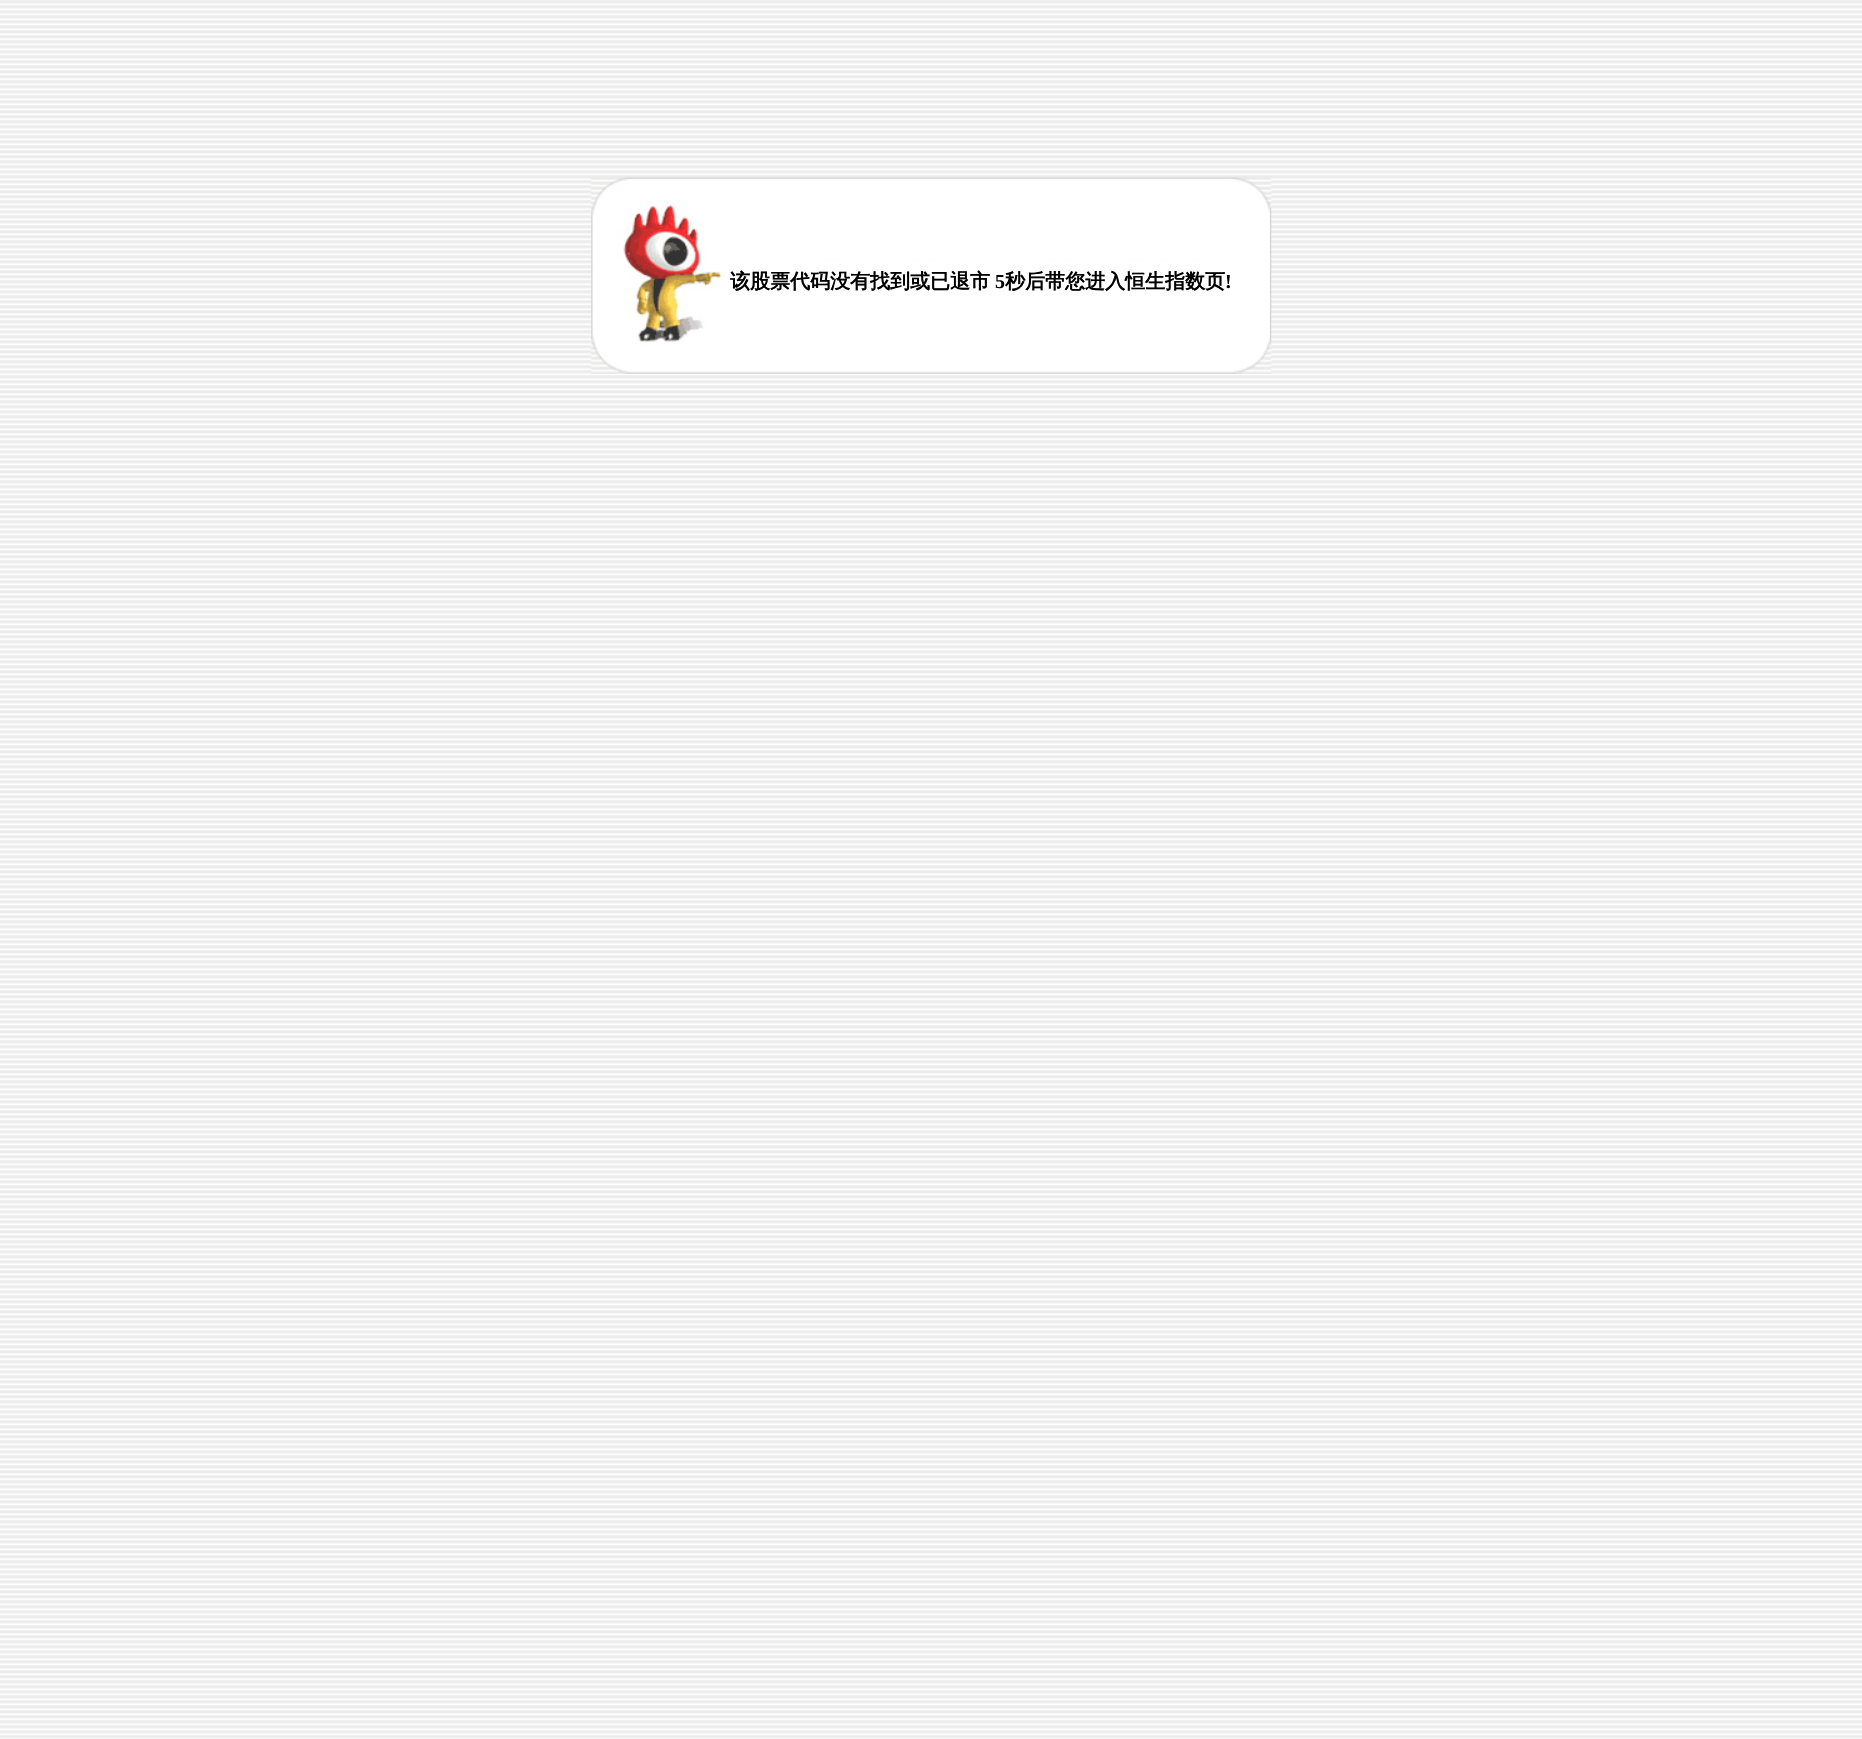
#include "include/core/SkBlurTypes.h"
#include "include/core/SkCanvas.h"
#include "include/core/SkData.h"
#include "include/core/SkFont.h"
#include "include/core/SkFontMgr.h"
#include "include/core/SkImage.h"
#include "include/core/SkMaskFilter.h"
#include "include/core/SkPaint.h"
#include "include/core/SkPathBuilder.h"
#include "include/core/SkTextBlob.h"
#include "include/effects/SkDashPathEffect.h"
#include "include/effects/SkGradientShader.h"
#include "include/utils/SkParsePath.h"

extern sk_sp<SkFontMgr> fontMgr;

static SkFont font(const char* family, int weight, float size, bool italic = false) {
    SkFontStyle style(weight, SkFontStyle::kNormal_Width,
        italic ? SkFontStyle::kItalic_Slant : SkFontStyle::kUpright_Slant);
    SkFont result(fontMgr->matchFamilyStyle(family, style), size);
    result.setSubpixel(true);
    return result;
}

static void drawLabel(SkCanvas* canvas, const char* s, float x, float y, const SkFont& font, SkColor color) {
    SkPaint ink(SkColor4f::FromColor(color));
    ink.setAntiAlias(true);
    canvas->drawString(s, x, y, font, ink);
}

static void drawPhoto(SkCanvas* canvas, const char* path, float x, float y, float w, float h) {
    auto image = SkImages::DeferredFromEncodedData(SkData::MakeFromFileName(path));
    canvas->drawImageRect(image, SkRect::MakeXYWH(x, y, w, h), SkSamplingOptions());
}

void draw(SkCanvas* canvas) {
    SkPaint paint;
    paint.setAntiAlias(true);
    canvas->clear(0xFFFFFFFF);
    drawPhoto(canvas, "assets/img1.png", 0, 0, 1862, 1739);
    drawPhoto(canvas, "assets/img2.png", 591, 177, 681, 197);
    SkFont font1 = font("WenQuanYi Zen Hei", 700, 20);
    drawLabel(canvas, "该股票代码没有找到或已退市", 730, 288, font1, 0xFF000000);
    SkFont font2 = font("Liberation Serif", 700, 20);
    drawLabel(canvas, "5", 995, 288, font2, 0xFF000000);
    drawLabel(canvas, "秒后带您进入恒生指数页", 1005, 288, font1, 0xFF000000);
    drawLabel(canvas, "!", 1225, 288, font2, 0xFF000000);
}
